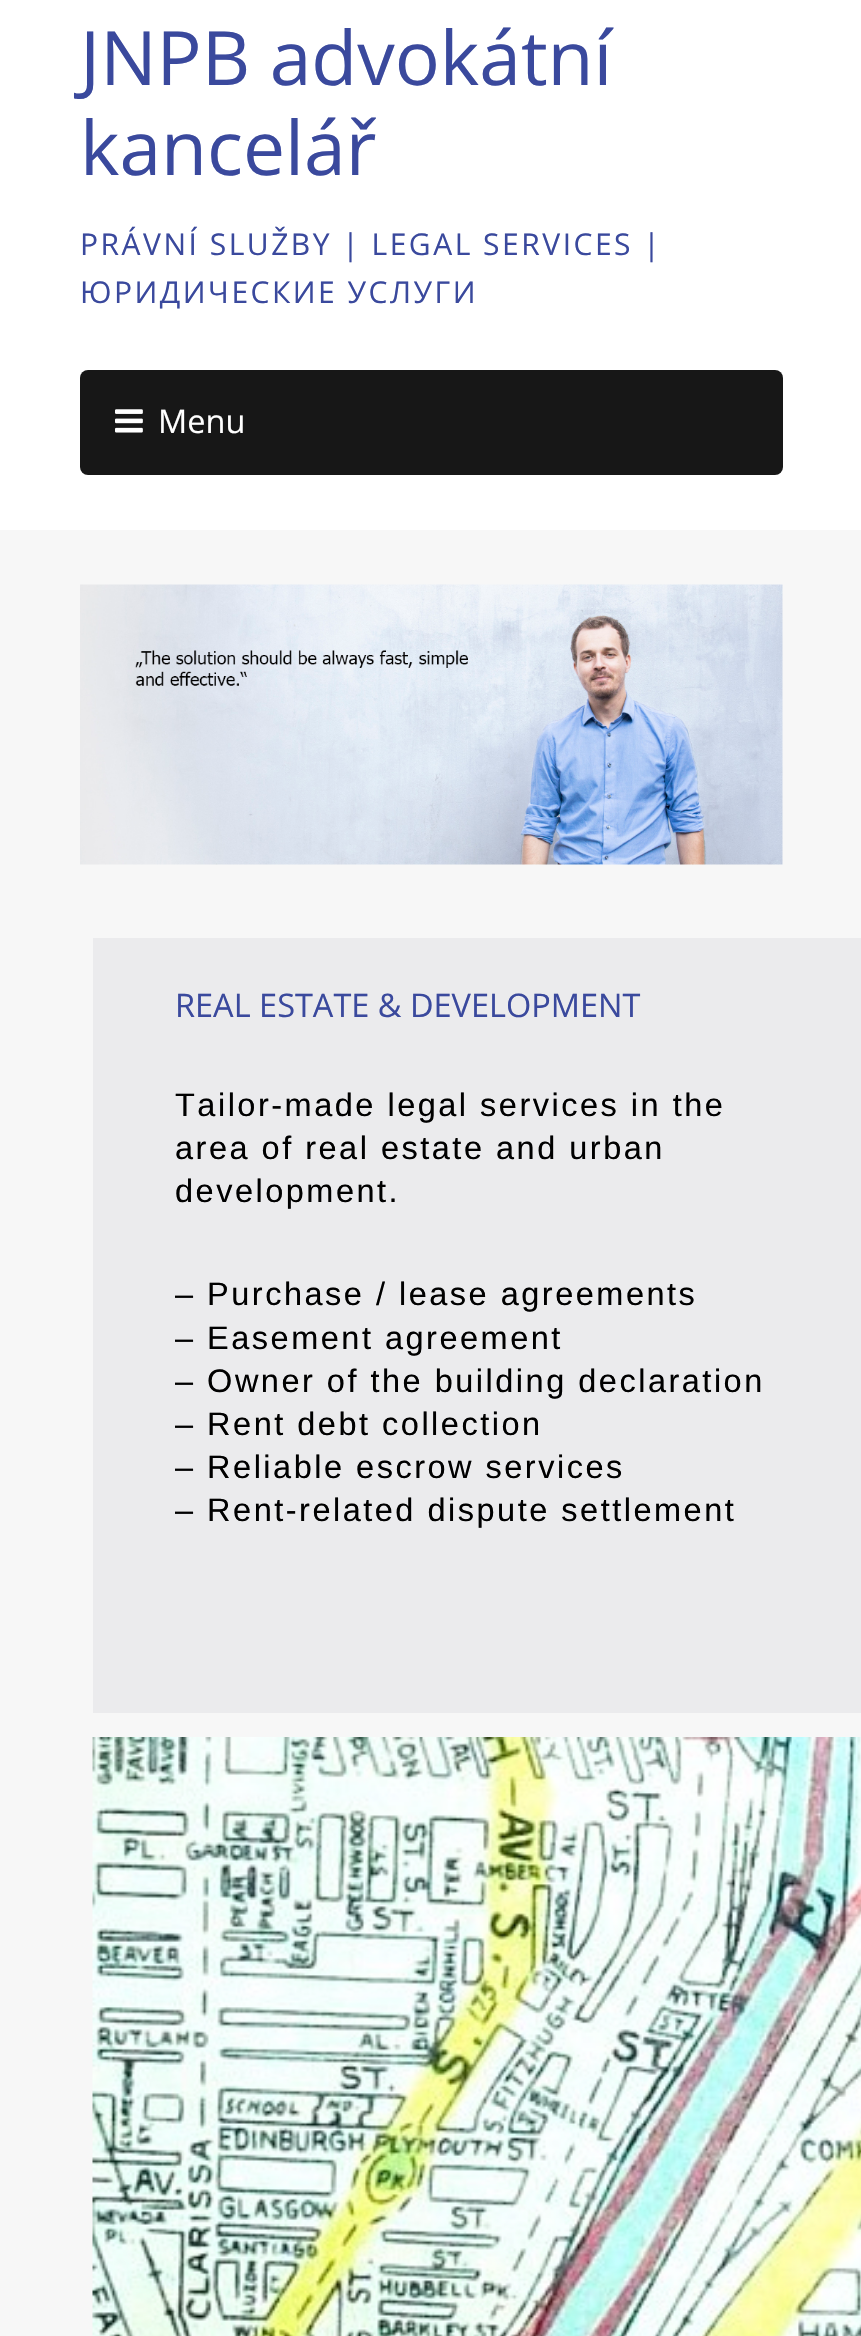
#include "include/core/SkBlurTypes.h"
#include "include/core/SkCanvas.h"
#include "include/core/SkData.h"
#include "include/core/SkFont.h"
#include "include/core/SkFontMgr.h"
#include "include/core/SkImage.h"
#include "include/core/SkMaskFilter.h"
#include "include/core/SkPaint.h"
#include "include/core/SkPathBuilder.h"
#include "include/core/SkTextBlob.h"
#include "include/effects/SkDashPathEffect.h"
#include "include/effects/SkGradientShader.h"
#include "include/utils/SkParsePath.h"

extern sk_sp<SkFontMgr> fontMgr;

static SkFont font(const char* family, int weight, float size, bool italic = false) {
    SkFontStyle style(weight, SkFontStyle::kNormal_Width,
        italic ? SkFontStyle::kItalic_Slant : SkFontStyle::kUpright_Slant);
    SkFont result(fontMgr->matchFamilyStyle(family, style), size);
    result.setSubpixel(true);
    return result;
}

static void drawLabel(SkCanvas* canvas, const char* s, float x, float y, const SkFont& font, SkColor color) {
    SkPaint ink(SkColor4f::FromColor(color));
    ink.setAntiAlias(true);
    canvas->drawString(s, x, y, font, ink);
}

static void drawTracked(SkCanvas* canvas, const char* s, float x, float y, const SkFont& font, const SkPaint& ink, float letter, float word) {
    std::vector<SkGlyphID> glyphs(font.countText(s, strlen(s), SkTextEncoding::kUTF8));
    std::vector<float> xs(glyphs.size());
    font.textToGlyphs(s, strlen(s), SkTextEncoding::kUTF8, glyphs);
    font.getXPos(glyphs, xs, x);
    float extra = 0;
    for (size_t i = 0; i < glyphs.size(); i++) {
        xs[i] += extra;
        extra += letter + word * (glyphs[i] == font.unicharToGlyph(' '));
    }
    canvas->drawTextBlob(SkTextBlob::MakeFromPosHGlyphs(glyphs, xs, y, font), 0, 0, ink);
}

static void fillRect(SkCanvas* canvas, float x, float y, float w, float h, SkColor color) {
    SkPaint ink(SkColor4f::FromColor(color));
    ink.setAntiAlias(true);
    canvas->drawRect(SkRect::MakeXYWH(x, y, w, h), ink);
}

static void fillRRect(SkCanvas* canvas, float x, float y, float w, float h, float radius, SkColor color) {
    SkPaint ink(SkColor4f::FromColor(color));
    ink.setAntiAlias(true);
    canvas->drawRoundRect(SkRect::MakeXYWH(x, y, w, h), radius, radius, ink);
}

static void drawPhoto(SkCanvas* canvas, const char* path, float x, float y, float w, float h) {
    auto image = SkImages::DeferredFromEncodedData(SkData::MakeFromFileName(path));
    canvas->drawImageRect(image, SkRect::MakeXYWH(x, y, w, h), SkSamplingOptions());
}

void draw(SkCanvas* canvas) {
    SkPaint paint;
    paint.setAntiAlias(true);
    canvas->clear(0xFFFFFFFF);
    SkFont font1 = font("Open Sans", 400, 75);
    drawLabel(canvas, "JNPB advokátní", 80, 85, font1, 0xFF3A499D);
    drawLabel(canvas, "kancelář", 80, 175, font1, 0xFF3A499D);
    SkFont font2 = font("Open Sans", 400, 30);
    paint.setColor(0xFF3A499D);
    drawTracked(canvas, "PRÁVNÍ SLUŽBY | LEGAL SERVICES |", 80, 255, font2, paint, 2.5f, 0);
    drawTracked(canvas, "ЮРИДИЧЕСКИЕ УСЛУГИ", 80, 303, font2, paint, 2.5f, 0);
    fillRRect(canvas, 80, 370, 703, 105, 8, 0xFF171717);
    drawPhoto(canvas, "assets/img1.png", 115, 409, 28, 24);
    SkFont font3 = font("Open Sans", 400, 32.5f);
    drawLabel(canvas, "Menu", 158, 433, font3, 0xFFFFFFFF);
    fillRect(canvas, 0, 530, 861, 1806, 0xFFF7F7F7);
    drawPhoto(canvas, "assets/img2.png", 80, 584, 703, 281);
    fillRect(canvas, 93, 938, 768, 775, 0xFFEBEBED);
    drawLabel(canvas, "REAL ESTATE & DEVELOPMENT", 175, 1017, font3, 0xFF3A499D);
    SkFont font4 = font("Liberation Sans", 400, 32.5f);
    paint.setColor(0xFF000000);
    drawTracked(canvas, "Tailor-made legal services in the", 175, 1116, font4, paint, 2.5f, 0);
    drawTracked(canvas, "area of real estate and urban", 175, 1159, font4, paint, 2.5f, 0);
    drawTracked(canvas, "development.", 175, 1202, font4, paint, 2.5f, 0);
    drawTracked(canvas, "– Purchase / lease agreements", 175, 1305, font4, paint, 2.5f, 0);
    drawTracked(canvas, "– Easement agreement", 175, 1349, font4, paint, 2.5f, 0);
    drawTracked(canvas, "– Owner of the building declaration", 175, 1392, font4, paint, 2.5f, 0);
    drawTracked(canvas, "– Rent debt collection", 175, 1435, font4, paint, 2.5f, 0);
    drawTracked(canvas, "– Reliable escrow services", 175, 1478, font4, paint, 2.5f, 0);
    drawTracked(canvas, "– Rent-related dispute settlement", 175, 1521, font4, paint, 2.5f, 0);
    drawPhoto(canvas, "assets/img3.png", 92, 1737, 769, 599);
}
